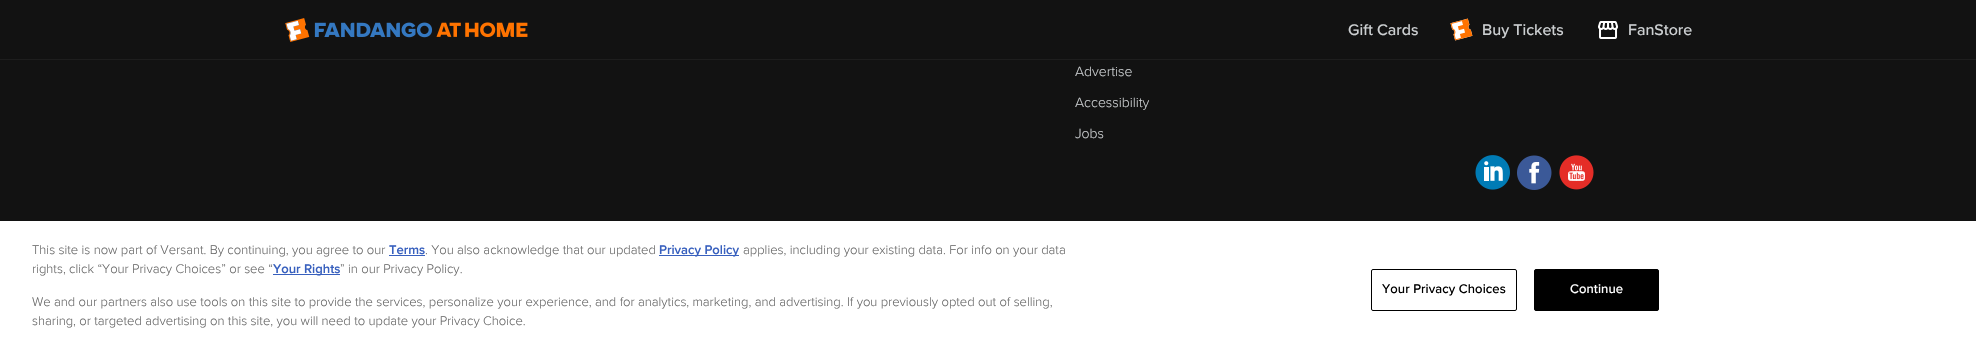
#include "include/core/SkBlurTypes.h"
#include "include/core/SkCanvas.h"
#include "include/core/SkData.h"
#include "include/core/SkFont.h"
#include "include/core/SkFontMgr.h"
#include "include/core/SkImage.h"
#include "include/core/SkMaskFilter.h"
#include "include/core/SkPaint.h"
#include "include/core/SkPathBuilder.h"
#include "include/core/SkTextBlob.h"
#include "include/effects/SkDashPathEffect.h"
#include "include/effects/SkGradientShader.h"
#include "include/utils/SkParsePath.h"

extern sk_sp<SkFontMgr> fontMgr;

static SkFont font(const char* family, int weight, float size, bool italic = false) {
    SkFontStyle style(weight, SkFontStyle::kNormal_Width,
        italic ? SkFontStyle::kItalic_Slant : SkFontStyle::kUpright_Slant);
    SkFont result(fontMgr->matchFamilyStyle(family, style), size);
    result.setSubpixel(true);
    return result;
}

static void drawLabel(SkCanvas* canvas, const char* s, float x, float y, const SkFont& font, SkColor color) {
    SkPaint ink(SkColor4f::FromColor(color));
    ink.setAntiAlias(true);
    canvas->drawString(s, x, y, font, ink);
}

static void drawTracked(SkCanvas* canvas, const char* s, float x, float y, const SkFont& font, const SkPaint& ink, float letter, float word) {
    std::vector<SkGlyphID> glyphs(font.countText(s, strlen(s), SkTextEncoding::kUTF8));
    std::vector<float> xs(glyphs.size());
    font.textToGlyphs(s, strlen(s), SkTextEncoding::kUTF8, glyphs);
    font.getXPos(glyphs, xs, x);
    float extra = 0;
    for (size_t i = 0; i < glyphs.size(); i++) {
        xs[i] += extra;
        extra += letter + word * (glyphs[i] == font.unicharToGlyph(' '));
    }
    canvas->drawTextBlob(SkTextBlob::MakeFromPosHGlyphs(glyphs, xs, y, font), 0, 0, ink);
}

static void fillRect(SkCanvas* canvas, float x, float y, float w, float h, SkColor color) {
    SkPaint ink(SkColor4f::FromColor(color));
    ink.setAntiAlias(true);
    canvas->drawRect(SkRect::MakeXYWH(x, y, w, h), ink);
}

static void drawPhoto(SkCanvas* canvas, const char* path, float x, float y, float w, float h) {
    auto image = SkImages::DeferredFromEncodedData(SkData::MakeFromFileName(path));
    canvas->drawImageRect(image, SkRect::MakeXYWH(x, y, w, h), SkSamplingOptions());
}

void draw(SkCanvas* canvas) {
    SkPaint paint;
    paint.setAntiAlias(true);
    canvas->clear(0xFF121212);
    fillRect(canvas, 0, 59, 1976, 1, 0xFF1E1E1E);
    drawPhoto(canvas, "assets/img1.png", 285, 18, 243, 24);
    SkFont font1 = font("Proxima Nova", 500, 16);
    drawLabel(canvas, "Gift Cards", 1348, 35, font1, 0xFFCCCFD1);
    drawPhoto(canvas, "assets/img2.png", 1450, 18, 23, 23);
    drawLabel(canvas, "Buy Tickets", 1482, 35, font1, 0xFFCCCFD1);
    drawPhoto(canvas, "assets/img3.png", 1598, 21, 21, 18);
    drawLabel(canvas, "FanStore", 1628, 35, font1, 0xFFCCCFD1);
    SkFont font2 = font("Proxima Nova", 300, 14);
    drawLabel(canvas, "Advertise", 1075, 76, font2, 0xFFCCCFD1);
    drawLabel(canvas, "Accessibility", 1075, 107, font2, 0xFFCCCFD1);
    drawLabel(canvas, "Jobs", 1075, 138, font2, 0xFFCCCFD1);
    drawPhoto(canvas, "assets/img4.png", 1475, 155, 35, 35);
    drawPhoto(canvas, "assets/img5.png", 1517, 155, 35, 35);
    drawPhoto(canvas, "assets/img6.png", 1559, 155, 35, 35);
    fillRect(canvas, 0, 221, 1976, 134, 0xFFFFFFFF);
    SkFont font3 = font("Proxima Nova", 300, 13);
    drawLabel(canvas, "This site is now part of Versant. By continuing, you agree to our", 32, 254, font3, 0xFF696969);
    SkFont font4 = font("Proxima Nova", 600, 13);
    drawLabel(canvas, "Terms", 389, 254, font4, 0xFF3860BE);
    fillRect(canvas, 389, 255, 36, 1, 0xFF3860BE);
    drawLabel(canvas, ". You also acknowledge that our updated", 425, 254, font3, 0xFF696969);
    fillRect(canvas, 659, 255, 80, 1, 0xFF3860BE);
    drawLabel(canvas, "Privacy Policy", 659, 254, font4, 0xFF3860BE);
    drawLabel(canvas, "applies, including your existing data. For info on your data", 743, 254, font3, 0xFF696969);
    drawLabel(canvas, "rights, click “Your Privacy Choices” or see “", 32, 273, font3, 0xFF696969);
    fillRect(canvas, 273, 274, 67, 1, 0xFF3860BE);
    drawLabel(canvas, "Your Rights", 273, 273, font4, 0xFF3860BE);
    drawLabel(canvas, "” in our Privacy Policy.", 340, 273, font3, 0xFF696969);
    drawLabel(canvas, "We and our partners also use tools on this site to provide the services, personalize your experience, and for analytics, marketing, and advertising. If you previously opted out of selling,", 32, 306, font3, 0xFF696969);
    drawLabel(canvas, "sharing, or targeted advertising on this site, you will need to update your Privacy Choice.", 32, 325, font3, 0xFF696969);
    paint.setStroke(true);
    paint.setStrokeWidth(1);
    paint.setColor(0xFF000000);
    canvas->drawRoundRect(SkRect::MakeXYWH(1371.5f, 269.5f, 145, 41), 1.5f, 1.5f, paint);
    SkFont font5 = font("Proxima Nova", 500, 13);
    paint.setStroke(false);
    drawTracked(canvas, "Your Privacy Choices", 1382, 293, font5, paint, 0.1f, 0);
    canvas->drawRoundRect(SkRect::MakeXYWH(1534.5f, 269.5f, 124, 41), 1.5f, 1.5f, paint);
    paint.setStroke(true);
    canvas->drawRoundRect(SkRect::MakeXYWH(1534.5f, 269.5f, 124, 41), 1.5f, 1.5f, paint);
    paint.setStroke(false);
    paint.setColor(0xFFFFFFFF);
    drawTracked(canvas, "Continue", 1570, 293, font5, paint, 0.1f, 0);
}
